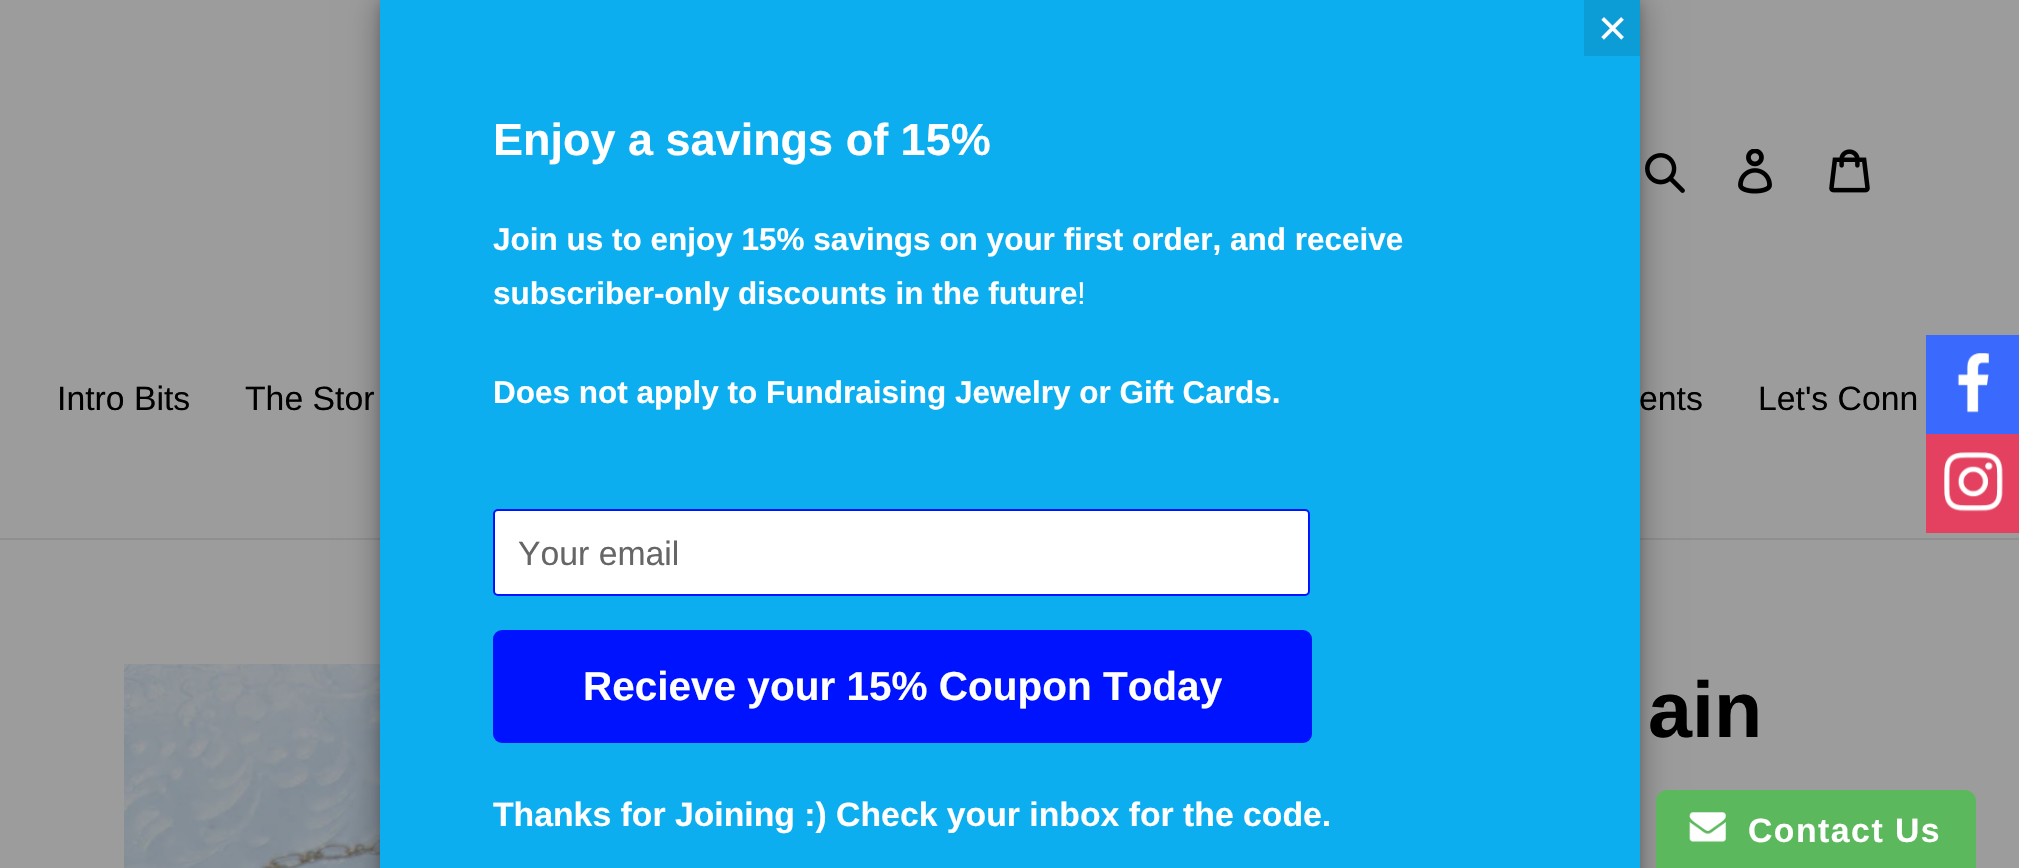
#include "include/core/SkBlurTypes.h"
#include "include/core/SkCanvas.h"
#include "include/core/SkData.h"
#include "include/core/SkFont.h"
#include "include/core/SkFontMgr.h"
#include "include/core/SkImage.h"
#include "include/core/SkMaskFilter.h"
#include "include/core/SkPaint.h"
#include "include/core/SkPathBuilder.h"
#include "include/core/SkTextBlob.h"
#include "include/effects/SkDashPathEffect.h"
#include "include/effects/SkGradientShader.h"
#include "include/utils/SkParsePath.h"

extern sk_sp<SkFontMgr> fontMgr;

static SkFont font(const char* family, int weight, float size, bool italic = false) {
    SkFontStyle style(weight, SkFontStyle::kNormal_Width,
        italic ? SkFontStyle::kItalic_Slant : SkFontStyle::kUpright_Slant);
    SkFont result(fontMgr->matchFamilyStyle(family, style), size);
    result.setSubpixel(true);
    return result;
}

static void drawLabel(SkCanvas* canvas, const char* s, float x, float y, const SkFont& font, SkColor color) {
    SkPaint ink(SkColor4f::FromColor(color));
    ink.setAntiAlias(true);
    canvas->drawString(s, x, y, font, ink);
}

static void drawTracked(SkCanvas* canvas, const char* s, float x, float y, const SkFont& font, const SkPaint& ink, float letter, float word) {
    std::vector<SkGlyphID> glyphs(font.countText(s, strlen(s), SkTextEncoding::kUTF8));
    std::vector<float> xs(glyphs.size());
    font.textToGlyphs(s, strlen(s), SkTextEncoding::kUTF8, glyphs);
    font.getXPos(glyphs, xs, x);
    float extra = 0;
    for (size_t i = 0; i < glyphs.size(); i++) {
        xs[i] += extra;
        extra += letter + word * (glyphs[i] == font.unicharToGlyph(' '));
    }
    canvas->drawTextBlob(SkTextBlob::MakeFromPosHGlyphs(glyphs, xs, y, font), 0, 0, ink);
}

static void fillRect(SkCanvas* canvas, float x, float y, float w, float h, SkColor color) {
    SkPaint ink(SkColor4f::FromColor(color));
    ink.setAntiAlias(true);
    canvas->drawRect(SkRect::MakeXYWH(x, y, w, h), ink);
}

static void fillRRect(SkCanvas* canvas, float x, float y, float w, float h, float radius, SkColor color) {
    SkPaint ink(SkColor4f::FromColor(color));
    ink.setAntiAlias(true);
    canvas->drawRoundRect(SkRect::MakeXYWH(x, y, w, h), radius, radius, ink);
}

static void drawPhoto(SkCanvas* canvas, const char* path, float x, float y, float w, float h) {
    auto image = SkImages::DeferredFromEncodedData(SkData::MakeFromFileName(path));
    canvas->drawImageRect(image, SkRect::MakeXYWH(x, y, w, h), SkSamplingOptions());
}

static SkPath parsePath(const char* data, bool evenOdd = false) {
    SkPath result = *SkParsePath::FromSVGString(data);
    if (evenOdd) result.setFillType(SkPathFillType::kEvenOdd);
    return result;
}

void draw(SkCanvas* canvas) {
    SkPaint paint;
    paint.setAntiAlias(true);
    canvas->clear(0xFF9C9C9C);
    drawPhoto(canvas, "assets/img3.png", 1645, 153, 40, 40);
    fillRect(canvas, 0, 538, 2019, 2, 0xFF8F8F8F);
    drawPhoto(canvas, "assets/img6.png", 124, 664, 256, 204);
    paint.setColor(0x33000000);
    paint.setMaskFilter(SkMaskFilter::MakeBlur(kNormal_SkBlurStyle, 5.5f));
    canvas->drawRect(SkRect::MakeXYWH(380, 2, 1260, 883), paint);
    paint.setMaskFilter(nullptr);
    paint.setColor(0x4D000000);
    paint.setMaskFilter(SkMaskFilter::MakeBlur(kNormal_SkBlurStyle, 17));
    canvas->drawRect(SkRect::MakeXYWH(380, 0, 1260, 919), paint);
    paint.setMaskFilter(nullptr);
    fillRect(canvas, 380, 0, 1260, 868, 0xFF0DAEEF);
    fillRect(canvas, 1584, 0, 56, 56, 0xFF0C9DD7);
    SkFont font1 = font("Liberation Sans", 400, 50);
    drawLabel(canvas, "×", 1598, 45, font1, 0xFFFFFFFF);
    SkFont font2 = font("Liberation Sans", 700, 45);
    drawLabel(canvas, "Enjoy a savings of 15%", 493, 155, font2, 0xFFFFFFFF);
    SkFont font3 = font("Liberation Sans", 700, 31.5f);
    drawLabel(canvas, "Join us to enjoy 15% savings on your first order, and receive", 493, 250, font3, 0xFFFFFFFF);
    drawLabel(canvas, "subscriber-only discounts in the future", 493, 304, font3, 0xFFFFFFFF);
    SkFont font4 = font("Liberation Sans", 400, 31.5f);
    drawLabel(canvas, "!", 1077, 304, font4, 0xFFFFFFFF);
    drawLabel(canvas, "Does not apply to Fundraising Jewelry or Gift Cards.", 493, 403, font3, 0xFFFFFFFF);
    paint.setColor(0xFFFFFFFF);
    canvas->drawRoundRect(SkRect::MakeXYWH(494, 510, 815, 85), 4, 4, paint);
    paint.setStroke(true);
    paint.setStrokeWidth(2);
    paint.setColor(0xFF0013FF);
    canvas->drawRoundRect(SkRect::MakeXYWH(494, 510, 815, 85), 4, 4, paint);
    SkFont font5 = font("Liberation Sans", 400, 33.75f);
    drawLabel(canvas, "Your email", 518, 565, font5, 0xFF666666);
    fillRRect(canvas, 493, 630, 819, 113, 9, 0xFF0013FF);
    SkFont font6 = font("Liberation Sans", 700, 40.5f);
    drawLabel(canvas, "Recieve your 15% Coupon Today", 583, 700, font6, 0xFFFFFFFF);
    SkFont font7 = font("Liberation Sans", 700, 33.75f);
    drawLabel(canvas, "Thanks for Joining :) Check your inbox for the code.", 493, 826, font7, 0xFFFFFFFF);
    fillRect(canvas, 1926, 335, 93, 99, 0xFF3969FD);
    drawPhoto(canvas, "assets/img1.png", 1957, 353, 32, 60);
    fillRect(canvas, 1926, 434, 93, 99, 0xFFE4405F);
    drawPhoto(canvas, "assets/img2.png", 1944, 452, 59, 60);
    drawPhoto(canvas, "assets/img4.png", 1738, 149, 34, 45);
    drawPhoto(canvas, "assets/img5.png", 1829, 149, 41, 44);
    drawLabel(canvas, "Intro Bits", 57, 410, font5, 0xFF000000);
    drawLabel(canvas, "The Stor", 245, 410, font5, 0xFF000000);
    drawLabel(canvas, "ents", 1639, 410, font5, 0xFF000000);
    drawLabel(canvas, "Let's Conn", 1758, 410, font5, 0xFF000000);
    SkFont font8 = font("Liberation Sans", 700, 79);
    drawLabel(canvas, "ain", 1648, 737, font8, 0xFF000000);
    paint.setStroke(false);
    paint.setColor(0xFF5CB85C);
    canvas->drawPath(parsePath("M1667 790H1965C1971 790 1976 795 1976 801V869H1656V801C1656 795 1661 790 1667 790Z"), paint);
    drawPhoto(canvas, "assets/img7.png", 1689, 812, 37, 30);
    paint.setColor(0xFFFFFFFF);
    drawTracked(canvas, "Contact Us", 1748, 842, font7, paint, 1.5f, 0);
}
